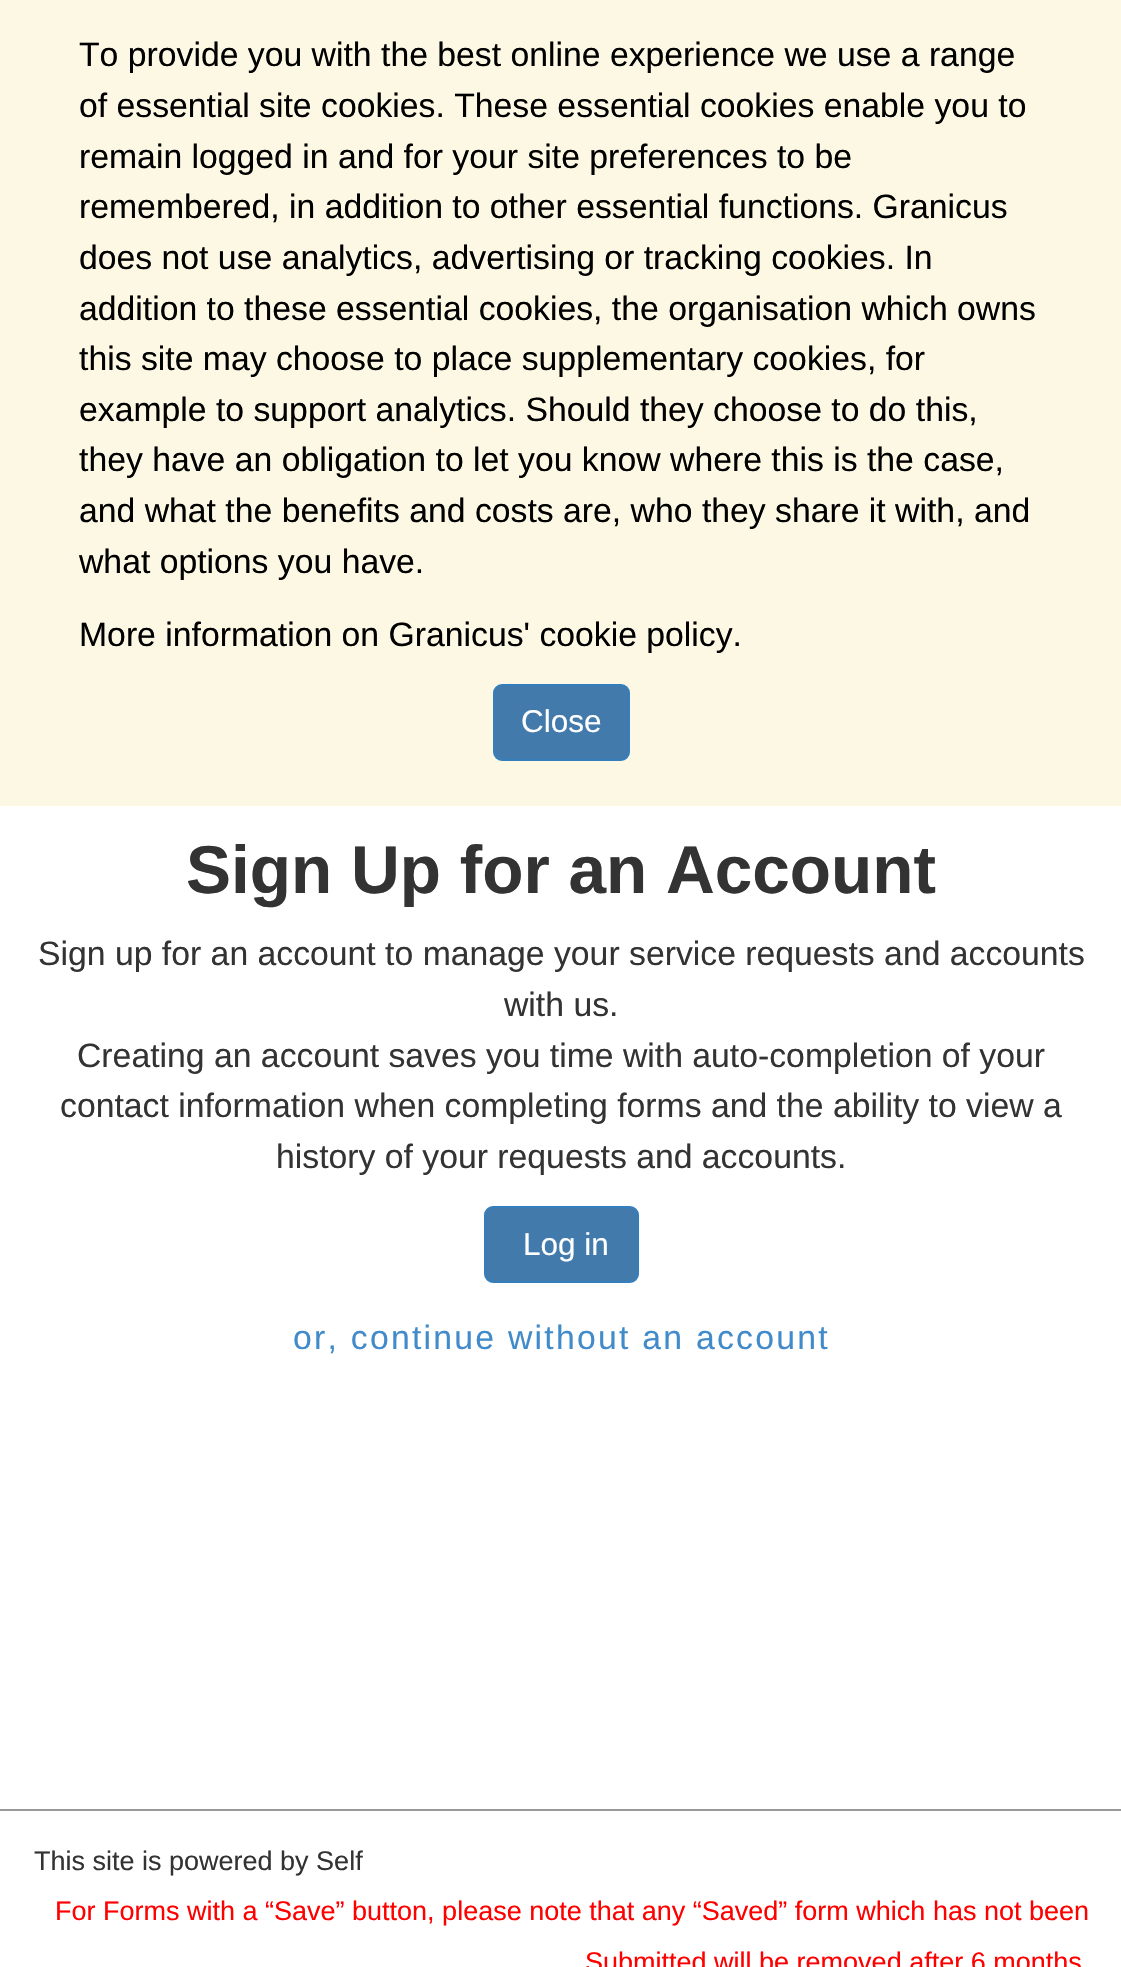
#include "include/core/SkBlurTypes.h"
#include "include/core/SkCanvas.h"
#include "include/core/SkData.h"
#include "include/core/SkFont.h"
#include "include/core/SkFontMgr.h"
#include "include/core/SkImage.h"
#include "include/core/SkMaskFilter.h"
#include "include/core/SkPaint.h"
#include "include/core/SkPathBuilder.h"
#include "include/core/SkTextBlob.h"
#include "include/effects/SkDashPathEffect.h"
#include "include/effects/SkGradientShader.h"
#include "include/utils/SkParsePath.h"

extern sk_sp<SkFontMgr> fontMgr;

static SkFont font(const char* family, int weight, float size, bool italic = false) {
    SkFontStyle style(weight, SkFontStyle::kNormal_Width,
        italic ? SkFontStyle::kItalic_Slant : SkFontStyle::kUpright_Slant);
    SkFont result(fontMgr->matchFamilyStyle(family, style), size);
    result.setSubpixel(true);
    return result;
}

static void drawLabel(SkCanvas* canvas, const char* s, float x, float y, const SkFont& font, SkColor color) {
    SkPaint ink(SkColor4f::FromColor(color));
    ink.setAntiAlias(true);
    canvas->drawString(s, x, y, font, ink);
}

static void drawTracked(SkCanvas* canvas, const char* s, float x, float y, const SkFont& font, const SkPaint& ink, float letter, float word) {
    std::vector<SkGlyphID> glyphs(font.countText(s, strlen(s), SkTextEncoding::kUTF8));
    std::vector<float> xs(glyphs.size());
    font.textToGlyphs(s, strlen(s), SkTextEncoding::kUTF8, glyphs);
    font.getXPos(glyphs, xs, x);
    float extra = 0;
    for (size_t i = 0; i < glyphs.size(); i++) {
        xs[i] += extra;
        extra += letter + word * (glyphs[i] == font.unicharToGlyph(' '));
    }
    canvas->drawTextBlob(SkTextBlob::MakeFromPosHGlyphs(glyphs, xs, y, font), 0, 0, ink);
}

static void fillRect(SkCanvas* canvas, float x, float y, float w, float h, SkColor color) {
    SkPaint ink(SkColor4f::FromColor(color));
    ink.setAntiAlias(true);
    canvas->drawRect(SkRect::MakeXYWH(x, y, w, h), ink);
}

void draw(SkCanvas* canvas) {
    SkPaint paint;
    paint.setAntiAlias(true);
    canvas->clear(0xFFFFFFFF);
    fillRect(canvas, 0, 0, 1121, 806, 0xFFFCF8E3);
    SkFont font1 = font("Liberation Sans", 400, 33.75f);
    drawLabel(canvas, "To provide you with the best online experience we use a range", 79, 66, font1, 0xFF000000);
    drawLabel(canvas, "of essential site cookies. These essential cookies enable you to", 79, 117, font1, 0xFF000000);
    drawLabel(canvas, "remain logged in and for your site preferences to be", 79, 168, font1, 0xFF000000);
    drawLabel(canvas, "remembered, in addition to other essential functions. Granicus", 79, 218, font1, 0xFF000000);
    drawLabel(canvas, "does not use analytics, advertising or tracking cookies. In", 79, 269, font1, 0xFF000000);
    drawLabel(canvas, "addition to these essential cookies, the organisation which owns", 79, 320, font1, 0xFF000000);
    drawLabel(canvas, "this site may choose to place supplementary cookies, for", 79, 370, font1, 0xFF000000);
    drawLabel(canvas, "example to support analytics. Should they choose to do this,", 79, 421, font1, 0xFF000000);
    drawLabel(canvas, "they have an obligation to let you know where this is the case,", 79, 471, font1, 0xFF000000);
    drawLabel(canvas, "and what the benefits and costs are, who they share it with, and", 79, 522, font1, 0xFF000000);
    drawLabel(canvas, "what options you have.", 79, 573, font1, 0xFF000000);
    drawLabel(canvas, "More information on Granicus' cookie policy.", 79, 646, font1, 0xFF000000);
    paint.setColor(0xFF427AAC);
    canvas->drawRoundRect(SkRect::MakeXYWH(494, 685, 135, 75), 8, 8, paint);
    paint.setStroke(true);
    paint.setStrokeWidth(2);
    paint.setColor(0xFF357EBD);
    canvas->drawRoundRect(SkRect::MakeXYWH(494, 685, 135, 75), 8, 8, paint);
    SkFont font2 = font("Liberation Sans", 400, 31.5f);
    drawLabel(canvas, "Close", 521, 732, font2, 0xFFFFFFFF);
    SkFont font3 = font("Liberation Sans", 700, 67.5f);
    drawLabel(canvas, "Sign Up for an Account", 186, 893, font3, 0xFF333333);
    drawLabel(canvas, "Sign up for an account to manage your service requests and accounts", 38, 965, font1, 0xFF333333);
    drawLabel(canvas, "with us.", 504, 1016, font1, 0xFF333333);
    drawLabel(canvas, "Creating an account saves you time with auto-completion of your", 77, 1067, font1, 0xFF333333);
    drawLabel(canvas, "contact information when completing forms and the ability to view a", 60, 1117, font1, 0xFF333333);
    drawLabel(canvas, "history of your requests and accounts.", 276, 1168, font1, 0xFF333333);
    paint.setStroke(false);
    paint.setColor(0xFF427AAC);
    canvas->drawRoundRect(SkRect::MakeXYWH(485, 1207, 153, 75), 8, 8, paint);
    paint.setStroke(true);
    paint.setColor(0xFF357EBD);
    canvas->drawRoundRect(SkRect::MakeXYWH(485, 1207, 153, 75), 8, 8, paint);
    drawLabel(canvas, "Log in", 523, 1255, font2, 0xFFFFFFFF);
    paint.setStroke(false);
    paint.setColor(0xFF428BCA);
    drawTracked(canvas, "or, continue without an account", 293, 1349, font1, paint, 2.25f, 0);
    fillRect(canvas, 0, 1809, 1121, 2, 0xFF999999);
    SkFont font4 = font("Liberation Sans", 400, 27);
    drawLabel(canvas, "This site is powered by Self", 34, 1870, font4, 0xFF333333);
    drawLabel(canvas, "For Forms with a “Save” button, please note that any “Saved” form which has not been", 55, 1920, font4, 0xFFFF0000);
    drawLabel(canvas, "Submitted will be removed after 6 months", 585, 1971, font4, 0xFFFF0000);
}
